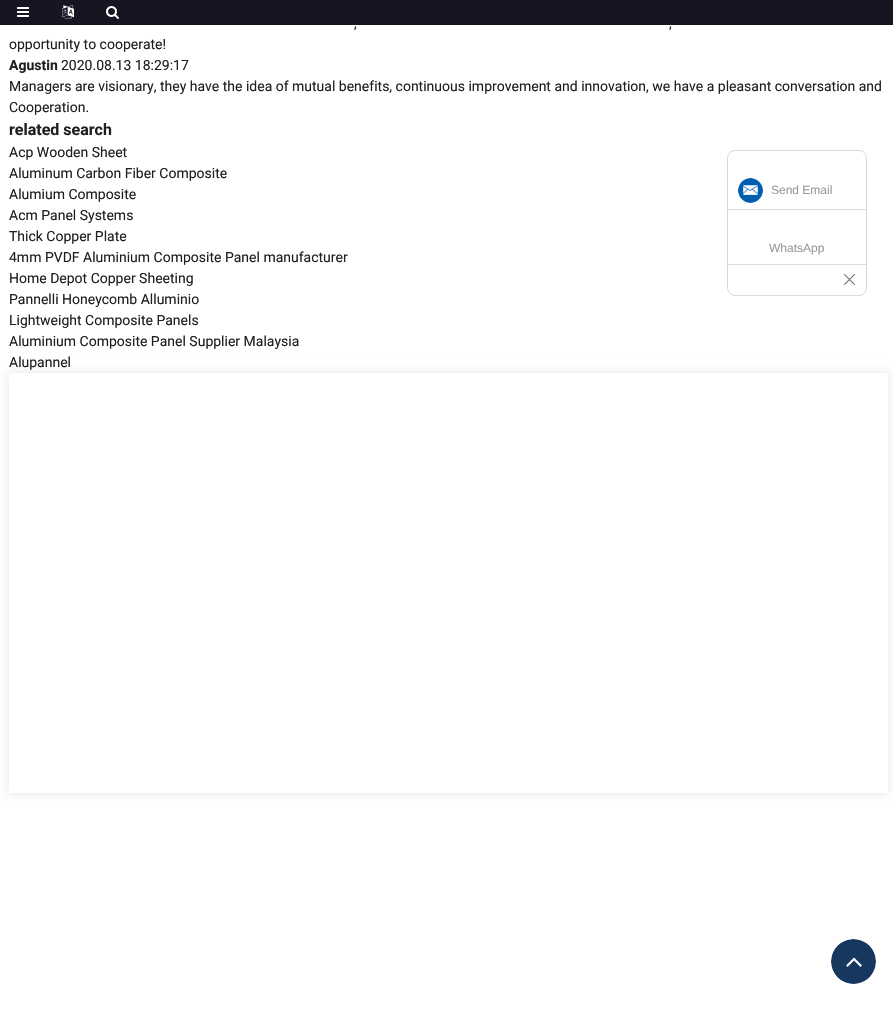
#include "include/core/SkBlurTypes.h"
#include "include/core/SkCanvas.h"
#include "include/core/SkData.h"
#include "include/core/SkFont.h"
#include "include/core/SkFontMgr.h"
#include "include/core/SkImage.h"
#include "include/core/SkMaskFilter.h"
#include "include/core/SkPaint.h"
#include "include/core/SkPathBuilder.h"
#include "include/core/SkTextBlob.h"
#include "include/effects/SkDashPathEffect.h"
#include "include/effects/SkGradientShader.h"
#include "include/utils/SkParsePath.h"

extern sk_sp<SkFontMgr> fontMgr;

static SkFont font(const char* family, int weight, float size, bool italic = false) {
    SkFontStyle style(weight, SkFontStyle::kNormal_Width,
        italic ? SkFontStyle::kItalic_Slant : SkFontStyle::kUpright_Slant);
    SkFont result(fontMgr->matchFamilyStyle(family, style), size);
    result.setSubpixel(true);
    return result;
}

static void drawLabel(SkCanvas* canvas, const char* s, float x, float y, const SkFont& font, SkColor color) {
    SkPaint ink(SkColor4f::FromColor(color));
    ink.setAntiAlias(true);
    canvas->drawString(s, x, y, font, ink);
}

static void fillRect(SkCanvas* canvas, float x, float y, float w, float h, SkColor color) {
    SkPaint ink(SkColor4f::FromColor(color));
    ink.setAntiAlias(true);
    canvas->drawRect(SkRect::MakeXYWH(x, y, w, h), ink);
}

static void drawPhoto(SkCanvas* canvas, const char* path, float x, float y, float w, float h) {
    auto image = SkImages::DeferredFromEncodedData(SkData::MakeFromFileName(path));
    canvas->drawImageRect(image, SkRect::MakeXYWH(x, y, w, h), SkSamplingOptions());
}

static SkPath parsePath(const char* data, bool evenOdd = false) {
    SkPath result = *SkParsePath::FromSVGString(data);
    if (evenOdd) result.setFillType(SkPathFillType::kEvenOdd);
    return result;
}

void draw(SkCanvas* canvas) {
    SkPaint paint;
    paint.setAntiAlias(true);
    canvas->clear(0xFFFFFFFF);
    fillRect(canvas, 0, 0, 893, 25, 0xFF161622);
    drawPhoto(canvas, "assets/img1.png", 17, 7, 12, 10);
    drawPhoto(canvas, "assets/img2.png", 62, 5, 12, 14);
    drawPhoto(canvas, "assets/img3.png", 106, 6, 13, 13);
    SkFont font1 = font("Roboto", 400, 14);
    drawLabel(canvas, ",", 354, 28, font1, 0xFF202020);
    drawLabel(canvas, ",", 669, 28, font1, 0xFF202020);
    drawLabel(canvas, "opportunity to cooperate!", 9, 49, font1, 0xFF202020);
    SkFont font2 = font("Roboto", 700, 14);
    drawLabel(canvas, "Agustin", 9, 70, font2, 0xFF202020);
    drawLabel(canvas, "2020.08.13 18:29:17", 61, 70, font1, 0xFF202020);
    drawLabel(canvas, "Managers are visionary, they have the idea of mutual benefits, continuous improvement and innovation, we have a pleasant conversation and", 9, 91, font1, 0xFF202020);
    drawLabel(canvas, "Cooperation.", 9, 112, font1, 0xFF202020);
    SkFont font3 = font("Roboto", 700, 16);
    drawLabel(canvas, "related search", 9, 135, font3, 0xFF202020);
    drawLabel(canvas, "Acp Wooden Sheet", 9, 157, font1, 0xFF202020);
    drawLabel(canvas, "Aluminum Carbon Fiber Composite", 9, 178, font1, 0xFF202020);
    drawLabel(canvas, "Alumium Composite", 9, 199, font1, 0xFF202020);
    drawLabel(canvas, "Acm Panel Systems", 9, 220, font1, 0xFF202020);
    drawLabel(canvas, "Thick Copper Plate", 9, 241, font1, 0xFF202020);
    drawLabel(canvas, "4mm PVDF Aluminium Composite Panel manufacturer", 9, 262, font1, 0xFF202020);
    drawLabel(canvas, "Home Depot Copper Sheeting", 9, 283, font1, 0xFF202020);
    drawLabel(canvas, "Pannelli Honeycomb Alluminio", 9, 304, font1, 0xFF202020);
    drawLabel(canvas, "Lightweight Composite Panels", 9, 325, font1, 0xFF202020);
    drawLabel(canvas, "Aluminium Composite Panel Supplier Malaysia", 9, 346, font1, 0xFF202020);
    drawLabel(canvas, "Alupannel", 9, 367, font1, 0xFF202020);
    canvas->save();
    canvas->clipPath(parsePath("M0 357H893V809H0ZM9 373H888V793H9Z", true), true);
    paint.setColor(0x1A000000);
    paint.setMaskFilter(SkMaskFilter::MakeBlur(kNormal_SkBlurStyle, 5));
    canvas->drawRect(SkRect::MakeXYWH(9, 373, 879, 420), paint);
    paint.setMaskFilter(nullptr);
    canvas->restore();
    paint.setStroke(true);
    paint.setStrokeWidth(1);
    paint.setColor(0xFFDADADA);
    canvas->drawRoundRect(SkRect::MakeXYWH(727.5f, 150.5f, 139, 145), 7.5f, 7.5f, paint);
    fillRect(canvas, 728, 209, 138, 1, 0xFFDADADA);
    drawPhoto(canvas, "assets/img4.png", 738, 178, 25, 25);
    SkFont font4 = font("Liberation Sans", 400, 12);
    drawLabel(canvas, "Send Email", 771, 194, font4, 0xFF999999);
    fillRect(canvas, 728, 264, 138, 1, 0xFFDADADA);
    drawLabel(canvas, "WhatsApp", 769, 252, font4, 0xFF999999);
    drawPhoto(canvas, "assets/img5.png", 844, 274, 11, 11);
    paint.setStroke(false);
    paint.setColor(0xFF16385E);
    canvas->drawCircle(853.5f, 961.5f, 22.5f, paint);
    paint.setStroke(true);
    paint.setStrokeWidth(2);
    paint.setColor(0xCCFFFFFF);
    canvas->drawCircle(853.5f, 961.5f, 23.5f, paint);
    drawPhoto(canvas, "assets/img6.png", 846, 957, 16, 10);
}
